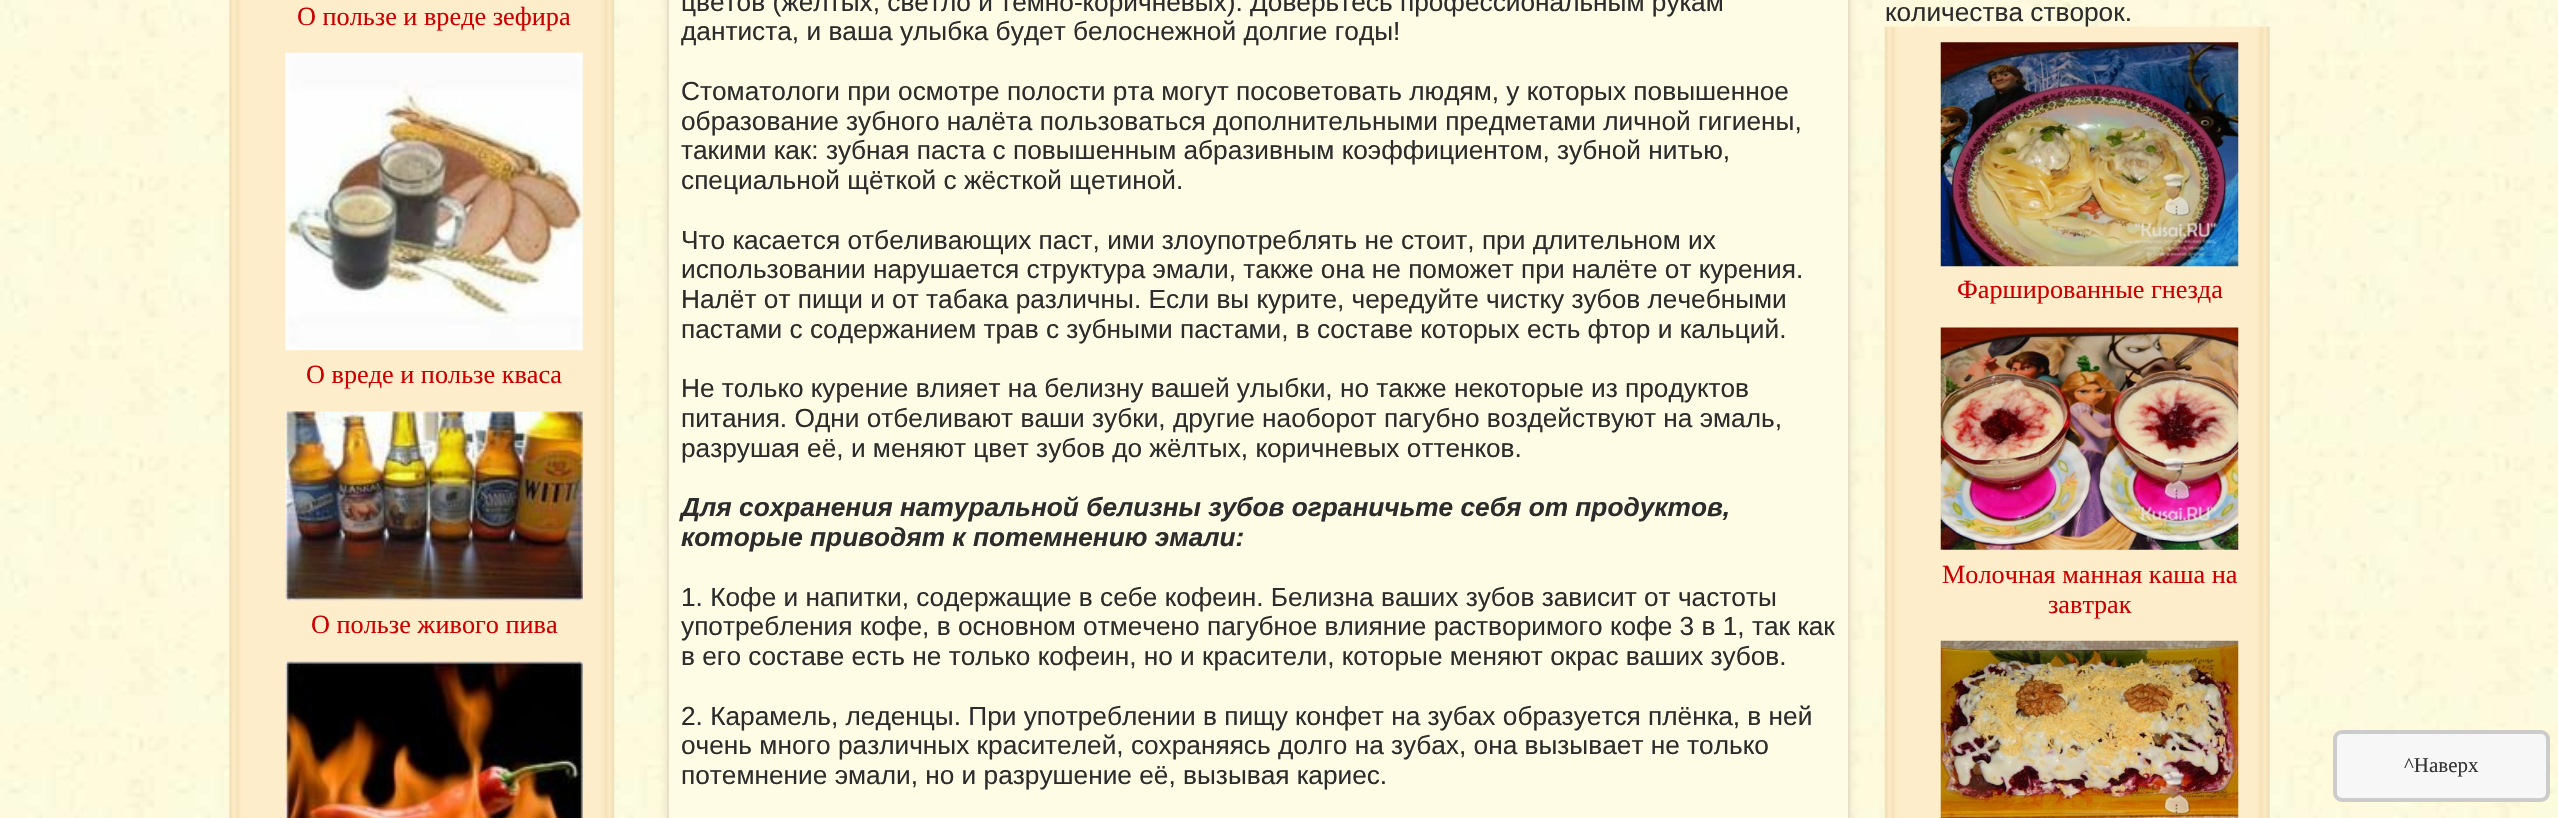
#include "include/core/SkBlurTypes.h"
#include "include/core/SkCanvas.h"
#include "include/core/SkData.h"
#include "include/core/SkFont.h"
#include "include/core/SkFontMgr.h"
#include "include/core/SkImage.h"
#include "include/core/SkMaskFilter.h"
#include "include/core/SkPaint.h"
#include "include/core/SkPathBuilder.h"
#include "include/core/SkTextBlob.h"
#include "include/effects/SkDashPathEffect.h"
#include "include/effects/SkGradientShader.h"
#include "include/utils/SkParsePath.h"

extern sk_sp<SkFontMgr> fontMgr;

static SkFont font(const char* family, int weight, float size, bool italic = false) {
    SkFontStyle style(weight, SkFontStyle::kNormal_Width,
        italic ? SkFontStyle::kItalic_Slant : SkFontStyle::kUpright_Slant);
    SkFont result(fontMgr->matchFamilyStyle(family, style), size);
    result.setSubpixel(true);
    return result;
}

static void drawLabel(SkCanvas* canvas, const char* s, float x, float y, const SkFont& font, SkColor color) {
    SkPaint ink(SkColor4f::FromColor(color));
    ink.setAntiAlias(true);
    canvas->drawString(s, x, y, font, ink);
}

static void drawPhoto(SkCanvas* canvas, const char* path, float x, float y, float w, float h) {
    auto image = SkImages::DeferredFromEncodedData(SkData::MakeFromFileName(path));
    canvas->drawImageRect(image, SkRect::MakeXYWH(x, y, w, h), SkSamplingOptions());
}

void draw(SkCanvas* canvas) {
    SkPaint paint;
    paint.setAntiAlias(true);
    canvas->clear(0xFFFFFFFF);
    drawPhoto(canvas, "assets/img1.png", 0, 0, 2558, 818);
    drawPhoto(canvas, "assets/img2.png", 229, 0, 386, 818);
    SkFont font1 = font("Liberation Serif", 400, 26.25f);
    drawLabel(canvas, "О пользе и вреде зефира", 297, 25, font1, 0xFFCC0000);
    drawPhoto(canvas, "assets/img3.png", 285, 52, 298, 299);
    drawLabel(canvas, "О вреде и пользе кваса", 306, 383, font1, 0xFFCC0000);
    drawPhoto(canvas, "assets/img4.png", 285, 411, 298, 190);
    drawLabel(canvas, "О пользе живого пива", 311, 633, font1, 0xFFCC0000);
    drawPhoto(canvas, "assets/img5.png", 285, 661, 298, 157);
    paint.setColor(0xFFE7DFC8);
    paint.setMaskFilter(SkMaskFilter::MakeBlur(kNormal_SkBlurStyle, 4.5f));
    canvas->drawRoundRect(SkRect::MakeXYWH(667, -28, 1183, 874), 14, 14, paint);
    paint.setMaskFilter(nullptr);
    paint.setColor(0xFFFFFCE5);
    canvas->drawRect(SkRect::MakeXYWH(668, -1, 1181, 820), paint);
    paint.setStroke(true);
    paint.setStrokeWidth(2);
    paint.setColor(0xFFE7DFC8);
    canvas->drawRect(SkRect::MakeXYWH(668, -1, 1181, 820), paint);
    SkFont font2 = font("Liberation Sans", 400, 26.25f);
    drawLabel(canvas, "цветов (жёлтых, светло и тёмно-коричневых). Доверьтесь профессиональным рукам", 681, 11, font2, 0xFF2C2C2C);
    drawLabel(canvas, "дантиста, и ваша улыбка будет белоснежной долгие годы!", 681, 40, font2, 0xFF2C2C2C);
    drawLabel(canvas, "Стоматологи при осмотре полости рта могут посоветовать людям, у которых повышенное", 681, 100, font2, 0xFF2C2C2C);
    drawLabel(canvas, "образование зубного налёта пользоваться дополнительными предметами личной гигиены,", 681, 130, font2, 0xFF2C2C2C);
    drawLabel(canvas, "такими как: зубная паста с повышенным абразивным коэффициентом, зубной нитью,", 681, 159, font2, 0xFF2C2C2C);
    drawLabel(canvas, "специальной щёткой с жёсткой щетиной.", 681, 189, font2, 0xFF2C2C2C);
    drawLabel(canvas, "Что касается отбеливающих паст, ими злоупотреблять не стоит, при длительном их", 681, 249, font2, 0xFF2C2C2C);
    drawLabel(canvas, "использовании нарушается структура эмали, также она не поможет при налёте от курения.", 681, 278, font2, 0xFF2C2C2C);
    drawLabel(canvas, "Налёт от пищи и от табака различны. Если вы курите, чередуйте чистку зубов лечебными", 681, 308, font2, 0xFF2C2C2C);
    drawLabel(canvas, "пастами с содержанием трав с зубными пастами, в составе которых есть фтор и кальций.", 681, 338, font2, 0xFF2C2C2C);
    drawLabel(canvas, "Не только курение влияет на белизну вашей улыбки, но также некоторые из продуктов", 681, 397, font2, 0xFF2C2C2C);
    drawLabel(canvas, "питания. Одни отбеливают ваши зубки, другие наоборот пагубно воздействуют на эмаль,", 681, 427, font2, 0xFF2C2C2C);
    drawLabel(canvas, "разрушая её, и меняют цвет зубов до жёлтых, коричневых оттенков.", 681, 457, font2, 0xFF2C2C2C);
    SkFont font3 = font("Liberation Sans", 700, 26.25f, true);
    drawLabel(canvas, "Для сохранения натуральной белизны зубов ограничьте себя от продуктов,", 681, 516, font3, 0xFF2C2C2C);
    drawLabel(canvas, "которые приводят к потемнению эмали:", 681, 546, font3, 0xFF2C2C2C);
    drawLabel(canvas, "1. Кофе и напитки, содержащие в себе кофеин. Белизна ваших зубов зависит от частоты", 681, 606, font2, 0xFF2C2C2C);
    drawLabel(canvas, "употребления кофе, в основном отмечено пагубное влияние растворимого кофе 3 в 1, так как", 681, 635, font2, 0xFF2C2C2C);
    drawLabel(canvas, "в его составе есть не только кофеин, но и красители, которые меняют окрас ваших зубов.", 681, 665, font2, 0xFF2C2C2C);
    drawLabel(canvas, "2. Карамель, леденцы. При употреблении в пищу конфет на зубах образуется плёнка, в ней", 681, 725, font2, 0xFF2C2C2C);
    drawLabel(canvas, "очень много различных красителей, сохраняясь долго на зубах, она вызывает не только", 681, 754, font2, 0xFF2C2C2C);
    drawLabel(canvas, "потемнение эмали, но и разрушение её, вызывая кариес.", 681, 784, font2, 0xFF2C2C2C);
    drawPhoto(canvas, "assets/img6.png", 1884, 26, 386, 792);
    drawLabel(canvas, "количества створок.", 1885, 21, font2, 0xFF2C2C2C);
    drawPhoto(canvas, "assets/img7.png", 1940, 42, 299, 225);
    drawLabel(canvas, "Фаршированные гнезда", 1957, 298, font1, 0xFFCC0000);
    drawPhoto(canvas, "assets/img8.png", 1940, 327, 299, 223);
    drawLabel(canvas, "Молочная манная каша на", 1942, 583, font1, 0xFFCC0000);
    drawLabel(canvas, "завтрак", 2048, 613, font1, 0xFFCC0000);
    drawPhoto(canvas, "assets/img9.png", 1940, 640, 299, 178);
    paint.setStroke(false);
    paint.setColor(0xFFF7F7F7);
    canvas->drawRoundRect(SkRect::MakeXYWH(2335, 732, 213, 68), 7, 7, paint);
    paint.setStroke(true);
    paint.setStrokeWidth(4);
    paint.setColor(0xFFCCCCCC);
    canvas->drawRoundRect(SkRect::MakeXYWH(2335, 732, 213, 68), 7, 7, paint);
    SkFont font4 = font("Liberation Serif", 400, 21);
    drawLabel(canvas, "^Наверх", 2404, 772, font4, 0xFF333333);
}
